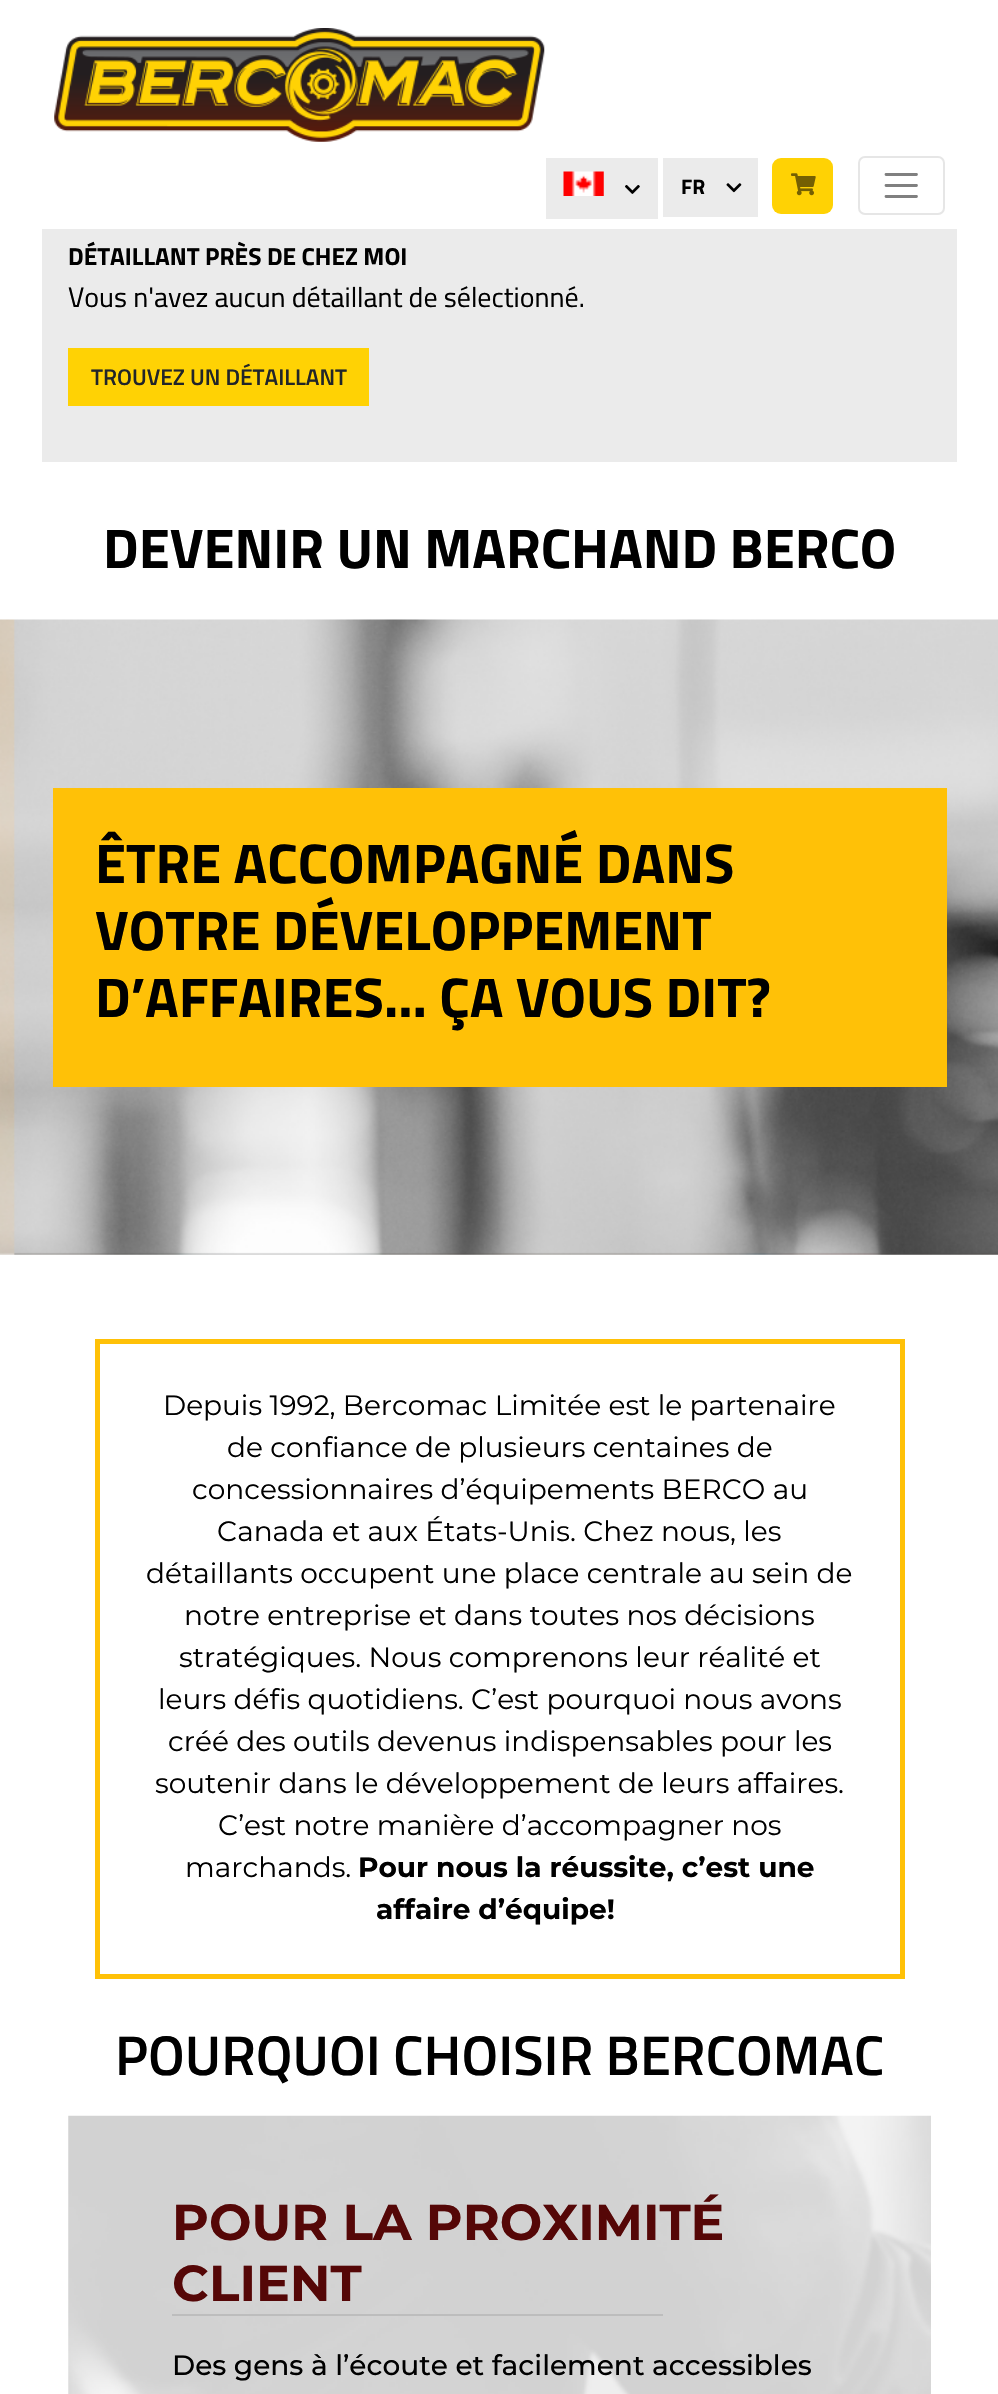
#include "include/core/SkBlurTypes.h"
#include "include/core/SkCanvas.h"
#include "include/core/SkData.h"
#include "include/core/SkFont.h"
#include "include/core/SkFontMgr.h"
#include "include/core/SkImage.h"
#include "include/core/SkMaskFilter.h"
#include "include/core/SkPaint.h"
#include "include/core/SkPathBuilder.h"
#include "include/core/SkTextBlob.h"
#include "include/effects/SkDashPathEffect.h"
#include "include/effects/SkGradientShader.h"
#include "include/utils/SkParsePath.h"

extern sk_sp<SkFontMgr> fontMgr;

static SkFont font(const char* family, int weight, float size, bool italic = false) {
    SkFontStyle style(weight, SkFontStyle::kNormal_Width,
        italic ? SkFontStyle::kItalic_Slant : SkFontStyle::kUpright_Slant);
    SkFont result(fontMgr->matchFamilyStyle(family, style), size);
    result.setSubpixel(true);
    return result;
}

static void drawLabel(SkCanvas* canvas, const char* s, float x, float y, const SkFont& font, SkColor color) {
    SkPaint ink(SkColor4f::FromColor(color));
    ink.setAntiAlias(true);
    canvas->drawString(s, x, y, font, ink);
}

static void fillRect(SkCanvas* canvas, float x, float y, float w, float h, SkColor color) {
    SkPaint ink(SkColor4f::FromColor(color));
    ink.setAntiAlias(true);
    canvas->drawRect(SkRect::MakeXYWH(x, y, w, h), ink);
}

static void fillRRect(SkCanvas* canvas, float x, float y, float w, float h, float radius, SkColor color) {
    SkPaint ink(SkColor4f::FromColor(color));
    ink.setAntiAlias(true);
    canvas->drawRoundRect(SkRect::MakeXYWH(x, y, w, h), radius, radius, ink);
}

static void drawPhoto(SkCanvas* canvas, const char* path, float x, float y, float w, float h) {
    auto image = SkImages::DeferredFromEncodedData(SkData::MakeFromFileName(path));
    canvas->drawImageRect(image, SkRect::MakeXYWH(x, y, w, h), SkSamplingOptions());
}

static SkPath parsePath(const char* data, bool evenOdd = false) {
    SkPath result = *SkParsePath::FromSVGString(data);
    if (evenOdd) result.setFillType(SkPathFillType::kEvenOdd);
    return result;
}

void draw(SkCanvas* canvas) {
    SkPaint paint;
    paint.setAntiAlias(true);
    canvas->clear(0xFFFFFFFF);
    drawPhoto(canvas, "assets/img1.png", 54, 28, 491, 114);
    paint.setStroke(true);
    paint.setStrokeWidth(2);
    paint.setColor(0xFFE6E6E6);
    canvas->drawRoundRect(SkRect::MakeXYWH(859, 157, 85, 57), 6, 6, paint);
    paint.setStrokeWidth(2.8f);
    paint.setStrokeCap(SkPaint::kRound_Cap);
    paint.setColor(0xFF808080);
    canvas->drawPath(parsePath("M886 174.5H916.5M886 185.5H916.5M886 196.5H916.5"), paint);
    fillRect(canvas, 546, 158, 112, 61, 0xFFEBEBEB);
    drawPhoto(canvas, "assets/img2.png", 563, 171, 41, 25);
    drawPhoto(canvas, "assets/img3.png", 625, 185, 15, 9);
    fillRect(canvas, 663, 158, 95, 59, 0xFFEBEBEB);
    SkFont font1 = font("Titillium Web", 700, 21);
    drawLabel(canvas, "FR", 681, 194, font1, 0xFF000000);
    drawPhoto(canvas, "assets/img4.png", 726, 183, 16, 10);
    fillRRect(canvas, 772, 158, 61, 56, 9, 0xFFFFD204);
    drawPhoto(canvas, "assets/img5.png", 791, 173, 25, 23);
    fillRect(canvas, 42, 229, 915, 233, 0xFFEBEBEB);
    SkFont font2 = font("Titillium Web", 700, 24.5f);
    drawLabel(canvas, "DÉTAILLANT PRÈS DE CHEZ MOI", 68, 265, font2, 0xFF000000);
    SkFont font3 = font("Titillium Web", 400, 28);
    drawLabel(canvas, "Vous n'avez aucun détaillant de sélectionné.", 68, 307, font3, 0xFF000000);
    fillRect(canvas, 68, 348, 301, 58, 0xFFFFD204);
    SkFont font4 = font("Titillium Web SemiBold", 600, 22.75f);
    drawLabel(canvas, "TROUVEZ UN DÉTAILLANT", 91, 385, font4, 0xFF212529);
    SkFont font5 = font("Titillium Web", 700, 56);
    drawLabel(canvas, "DEVENIR UN MARCHAND BERCO", 103, 568, font5, 0xFF000000);
    drawPhoto(canvas, "assets/img6.png", 0, 619, 998, 636);
    fillRect(canvas, 53, 788, 894, 299, 0xFFFFC107);
    drawLabel(canvas, "ÊTRE ACCOMPAGNÉ DANS", 95, 883, font5, 0xFF000000);
    drawLabel(canvas, "VOTRE DÉVELOPPEMENT", 95, 950, font5, 0xFF000000);
    drawLabel(canvas, "D’AFFAIRES… ÇA VOUS DIT?", 95, 1017, font5, 0xFF000000);
    paint.setStrokeWidth(5);
    paint.setStrokeCap(SkPaint::kButt_Cap);
    paint.setColor(0xFFFFC107);
    canvas->drawRect(SkRect::MakeXYWH(97.5f, 1341.5f, 805, 635), paint);
    SkFont font6 = font("Montserrat", 400, 28);
    drawLabel(canvas, "Depuis 1992, Bercomac Limitée est le partenaire", 163, 1415, font6, 0xFF000000);
    drawLabel(canvas, "de confiance de plusieurs centaines de", 227, 1457, font6, 0xFF000000);
    drawLabel(canvas, "concessionnaires d’équipements BERCO au", 192, 1499, font6, 0xFF000000);
    drawLabel(canvas, "Canada et aux États-Unis. Chez nous, les", 217, 1541, font6, 0xFF000000);
    drawLabel(canvas, "détaillants occupent une place centrale au sein de", 146, 1583, font6, 0xFF000000);
    drawLabel(canvas, "notre entreprise et dans toutes nos décisions", 184, 1625, font6, 0xFF000000);
    drawLabel(canvas, "stratégiques. Nous comprenons leur réalité et", 179, 1667, font6, 0xFF000000);
    drawLabel(canvas, "leurs défis quotidiens. C’est pourquoi nous avons", 158, 1709, font6, 0xFF000000);
    drawLabel(canvas, "créé des outils devenus indispensables pour les", 168, 1751, font6, 0xFF000000);
    drawLabel(canvas, "soutenir dans le développement de leurs affaires.", 155, 1793, font6, 0xFF000000);
    drawLabel(canvas, "C’est notre manière d’accompagner nos", 218, 1835, font6, 0xFF000000);
    drawLabel(canvas, "marchands.", 185, 1877, font6, 0xFF000000);
    SkFont font7 = font("Montserrat", 700, 28);
    drawLabel(canvas, "Pour nous la réussite, c’est une", 358, 1877, font7, 0xFF000000);
    drawLabel(canvas, "affaire d’équipe!", 376, 1919, font7, 0xFF000000);
    SkFont font8 = font("Titillium Web SemiBold", 600, 56);
    drawLabel(canvas, "POURQUOI CHOISIR BERCOMAC", 115, 2075, font8, 0xFF000000);
    drawPhoto(canvas, "assets/img7.png", 68, 2115, 863, 279);
    SkFont font9 = font("Montserrat", 700, 50.4f);
    drawLabel(canvas, "POUR LA PROXIMITÉ", 172, 2240, font9, 0xFF550707);
    drawLabel(canvas, "CLIENT", 172, 2301, font9, 0xFF550707);
    fillRect(canvas, 172, 2314, 491, 2, 0xFFBDBDBD);
    SkFont font10 = font("Montserrat", 500, 28);
    drawLabel(canvas, "Des gens à l’écoute et facilement accessibles", 172, 2375, font10, 0xFF000000);
}
